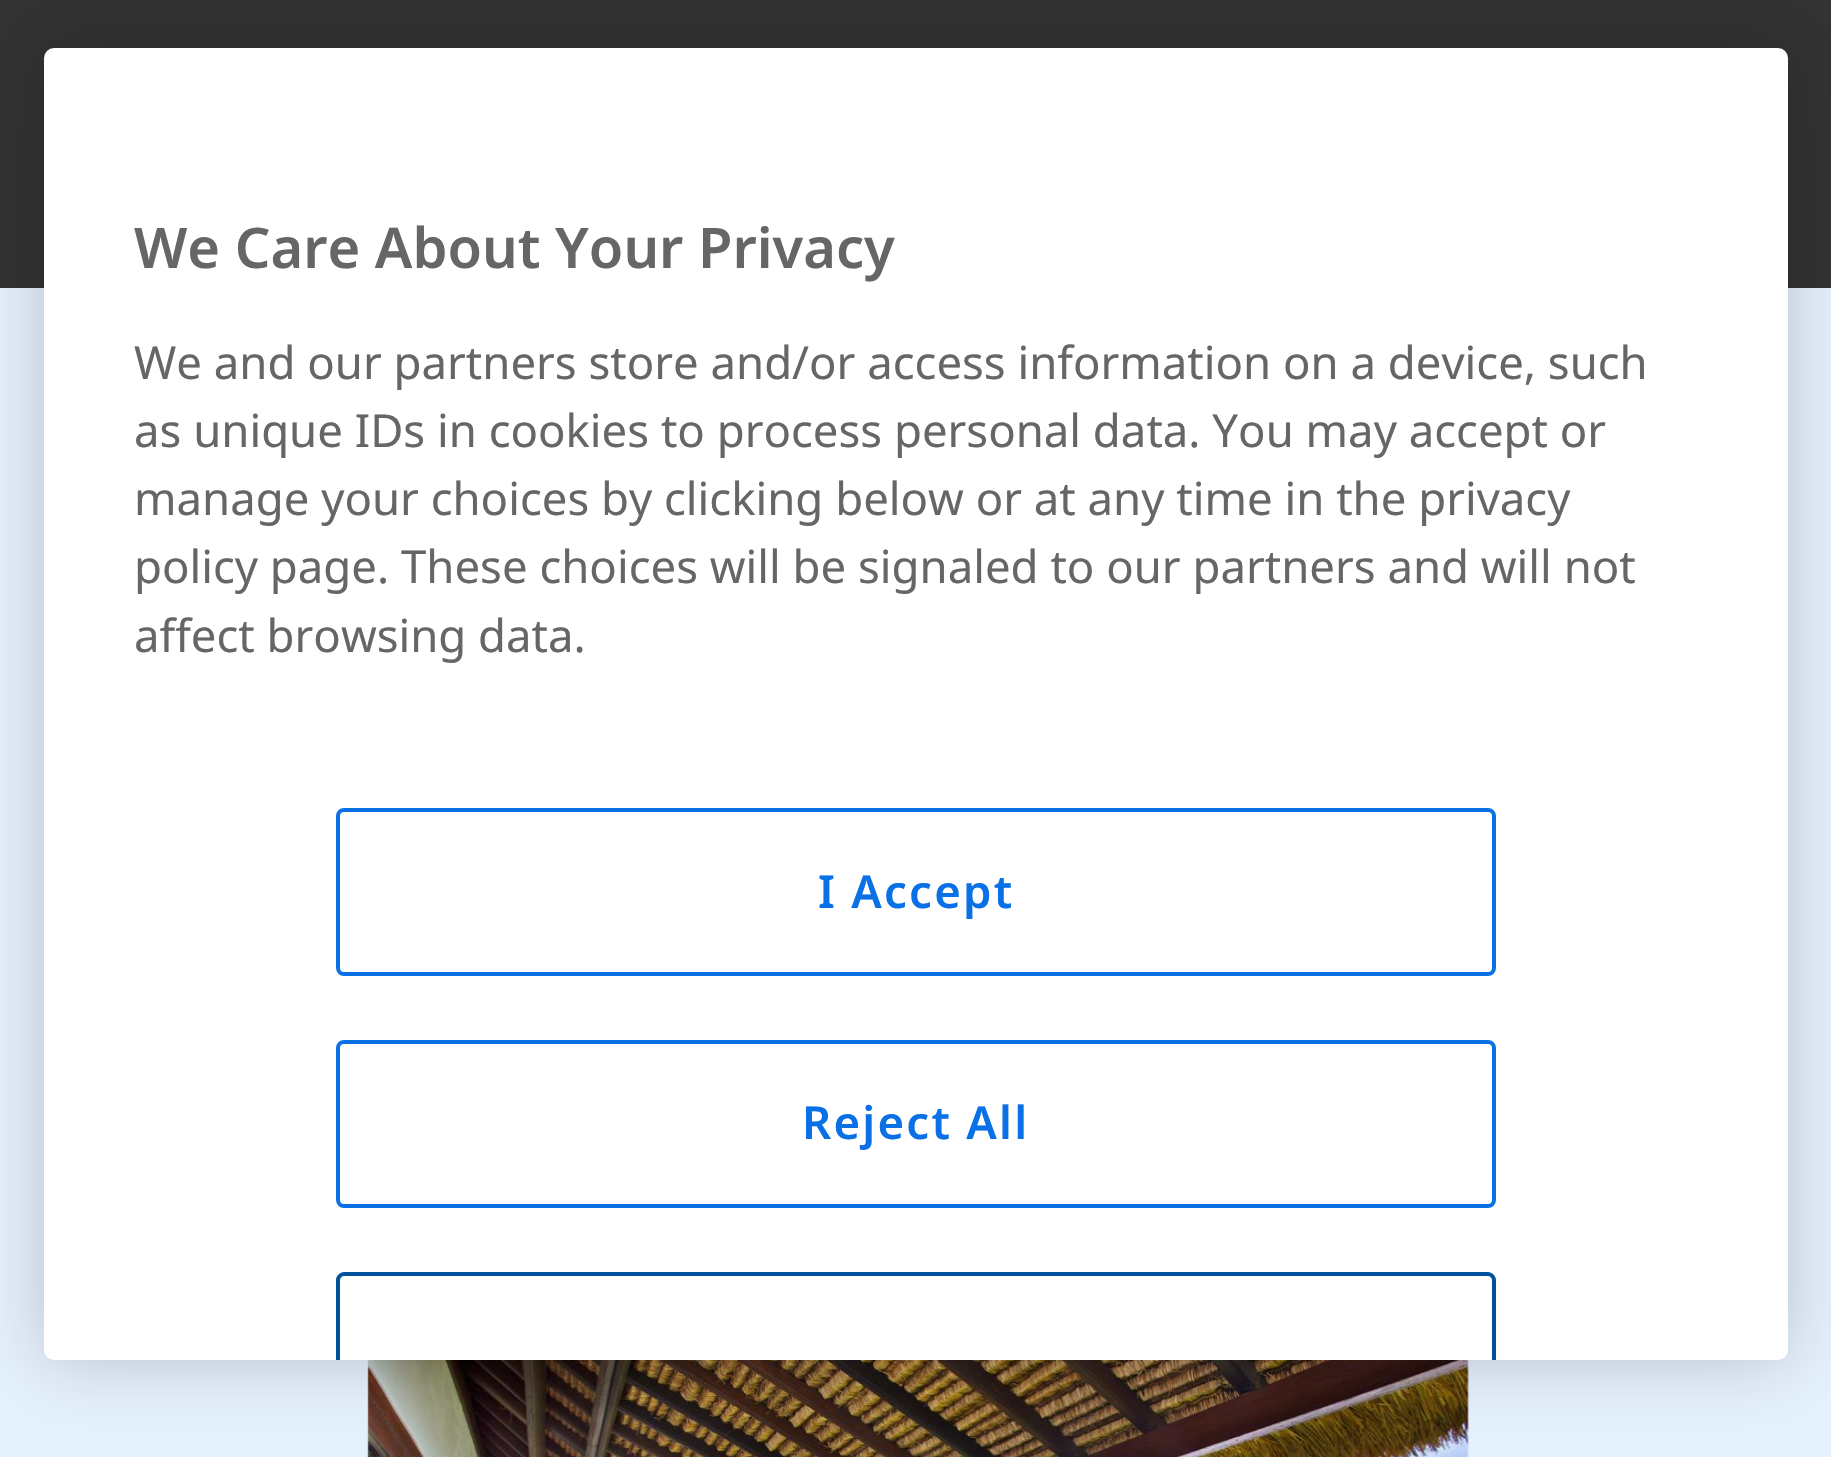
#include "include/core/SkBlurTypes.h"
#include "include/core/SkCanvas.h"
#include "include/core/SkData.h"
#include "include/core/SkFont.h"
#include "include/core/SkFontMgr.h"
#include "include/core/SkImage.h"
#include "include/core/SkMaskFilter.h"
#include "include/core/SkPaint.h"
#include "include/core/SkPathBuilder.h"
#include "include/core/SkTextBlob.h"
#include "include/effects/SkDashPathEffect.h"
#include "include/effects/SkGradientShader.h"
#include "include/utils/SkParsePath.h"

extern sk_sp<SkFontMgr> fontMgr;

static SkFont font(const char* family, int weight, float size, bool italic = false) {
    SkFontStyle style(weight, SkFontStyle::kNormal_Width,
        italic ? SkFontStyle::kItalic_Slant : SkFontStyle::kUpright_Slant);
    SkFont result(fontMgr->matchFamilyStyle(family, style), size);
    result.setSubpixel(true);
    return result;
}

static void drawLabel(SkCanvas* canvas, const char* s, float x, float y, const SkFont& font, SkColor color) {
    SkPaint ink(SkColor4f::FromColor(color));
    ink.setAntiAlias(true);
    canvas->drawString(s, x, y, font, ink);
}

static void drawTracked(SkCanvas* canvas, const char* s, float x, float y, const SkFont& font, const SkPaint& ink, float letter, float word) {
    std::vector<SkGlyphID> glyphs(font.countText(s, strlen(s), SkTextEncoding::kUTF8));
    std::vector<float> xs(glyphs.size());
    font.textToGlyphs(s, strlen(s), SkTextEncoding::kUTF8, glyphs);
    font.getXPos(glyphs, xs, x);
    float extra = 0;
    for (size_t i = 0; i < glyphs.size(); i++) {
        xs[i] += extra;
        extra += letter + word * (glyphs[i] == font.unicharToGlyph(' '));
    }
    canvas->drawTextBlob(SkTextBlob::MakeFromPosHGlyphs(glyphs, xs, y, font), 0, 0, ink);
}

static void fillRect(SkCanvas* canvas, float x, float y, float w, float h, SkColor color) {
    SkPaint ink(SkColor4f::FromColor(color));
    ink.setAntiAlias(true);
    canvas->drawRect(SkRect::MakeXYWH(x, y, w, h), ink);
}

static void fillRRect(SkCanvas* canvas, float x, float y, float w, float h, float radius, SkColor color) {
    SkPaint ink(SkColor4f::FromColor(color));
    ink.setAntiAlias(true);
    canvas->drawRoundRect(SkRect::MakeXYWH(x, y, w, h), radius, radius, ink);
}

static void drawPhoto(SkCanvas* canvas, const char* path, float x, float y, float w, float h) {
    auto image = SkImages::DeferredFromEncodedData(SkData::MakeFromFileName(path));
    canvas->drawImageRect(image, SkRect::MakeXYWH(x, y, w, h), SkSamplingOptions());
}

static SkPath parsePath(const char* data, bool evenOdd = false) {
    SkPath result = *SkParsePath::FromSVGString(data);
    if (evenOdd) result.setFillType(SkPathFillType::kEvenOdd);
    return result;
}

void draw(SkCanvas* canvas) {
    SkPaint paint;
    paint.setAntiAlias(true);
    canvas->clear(0xFFE6F1FE);
    fillRect(canvas, 0, 0, 1831, 288, 0xFF333333);
    drawPhoto(canvas, "assets/img1.png", 367, 1360, 1102, 97);
    paint.setColor(0x33000000);
    paint.setMaskFilter(SkMaskFilter::MakeBlur(kNormal_SkBlurStyle, 36));
    canvas->drawRoundRect(SkRect::MakeXYWH(44, 48, 1744, 1312), 10, 10, paint);
    paint.setMaskFilter(nullptr);
    fillRRect(canvas, 44, 48, 1744, 1312, 10, 0xFFFFFFFF);
    SkFont font1 = font("Noto Sans", 600, 56);
    drawLabel(canvas, "We Care About Your Privacy", 134, 268, font1, 0xFF666666);
    SkFont font2 = font("Noto Sans", 400, 45.5f);
    drawLabel(canvas, "We and our partners store and/or access information on a device, such", 134, 379, font2, 0xFF666666);
    drawLabel(canvas, "as unique IDs in cookies to process personal data. You may accept or", 134, 447, font2, 0xFF666666);
    drawLabel(canvas, "manage your choices by clicking below or at any time in the privacy", 134, 515, font2, 0xFF666666);
    drawLabel(canvas, "policy page. These choices will be signaled to our partners and will not", 134, 583, font2, 0xFF666666);
    drawLabel(canvas, "affect browsing data.", 134, 652, font2, 0xFF666666);
    paint.setStroke(true);
    paint.setStrokeWidth(4);
    paint.setColor(0xFF0970E6);
    canvas->drawRoundRect(SkRect::MakeXYWH(338, 810, 1156, 164), 6, 6, paint);
    SkFont font3 = font("Noto Sans", 600, 45.5f);
    paint.setStroke(false);
    drawTracked(canvas, "I Accept", 818, 908, font3, paint, 2.25f, 0);
    paint.setStroke(true);
    canvas->drawRoundRect(SkRect::MakeXYWH(338, 1042, 1156, 164), 6, 6, paint);
    paint.setStroke(false);
    drawTracked(canvas, "Reject All", 802, 1139, font3, paint, 2.25f, 0);
    paint.setColor(0xFF00529C);
    canvas->drawPath(parsePath("M344 1272C340 1272 336 1276 336 1280V1360H340V1280C340 1278 342 1276 344 1276H1488C1490 1276 1492 1278 1492 1280V1360H1496V1280C1496 1276 1492 1272 1488 1272Z"), paint);
}
